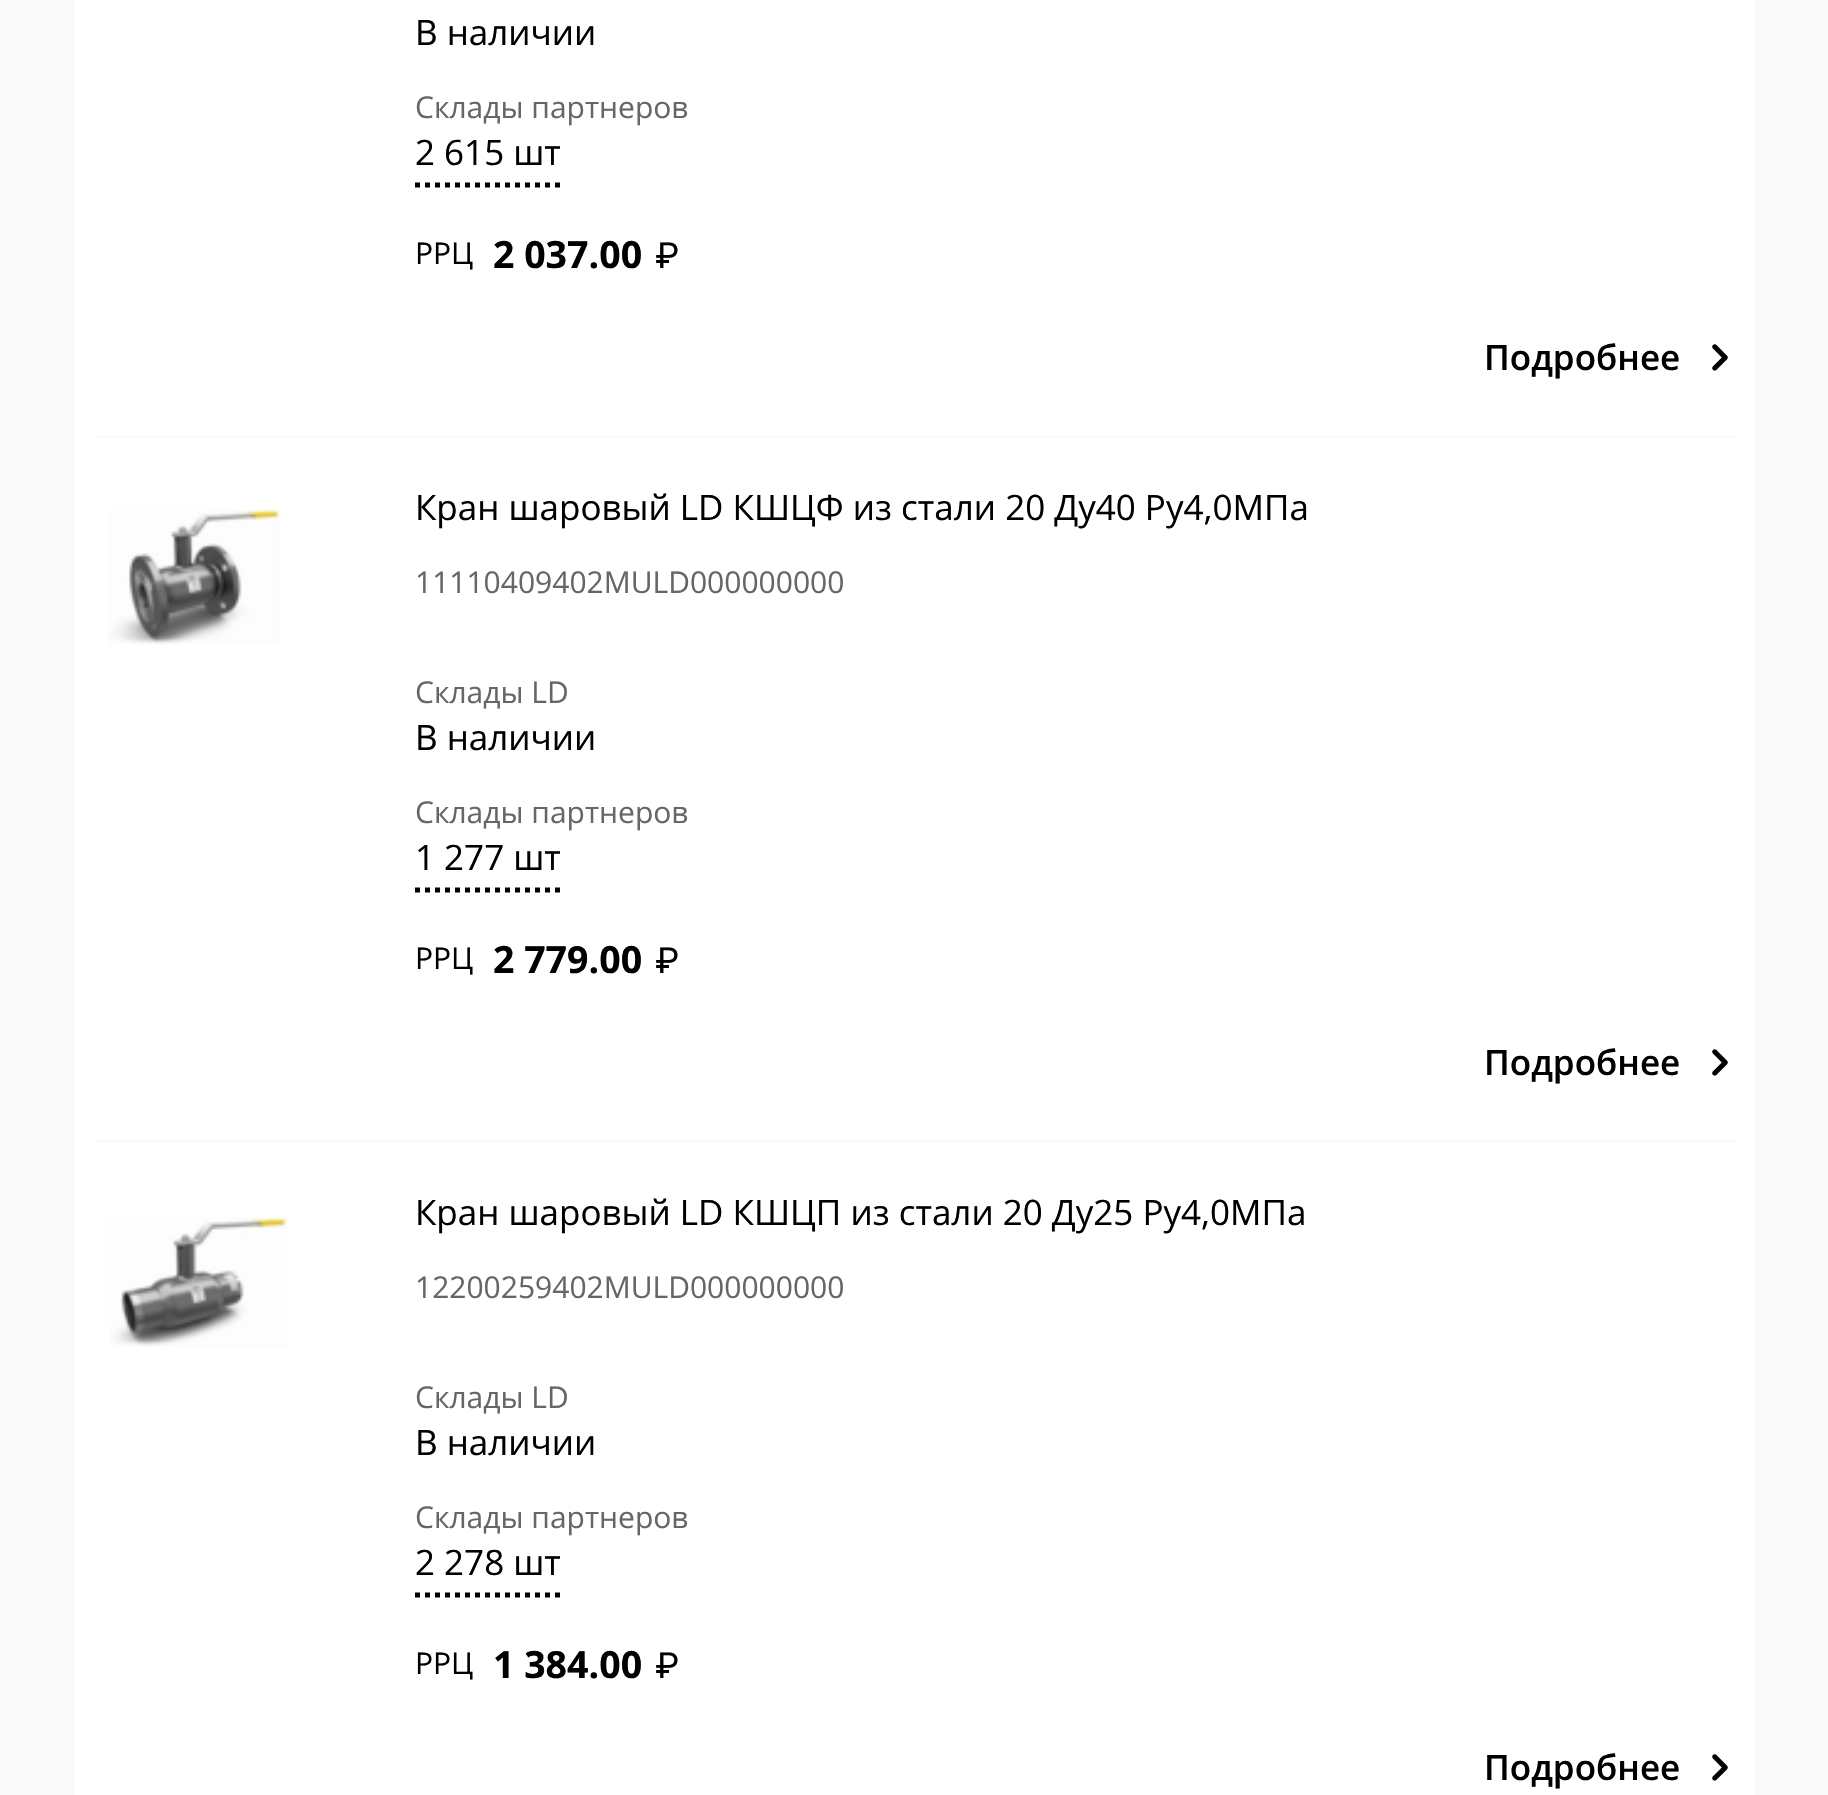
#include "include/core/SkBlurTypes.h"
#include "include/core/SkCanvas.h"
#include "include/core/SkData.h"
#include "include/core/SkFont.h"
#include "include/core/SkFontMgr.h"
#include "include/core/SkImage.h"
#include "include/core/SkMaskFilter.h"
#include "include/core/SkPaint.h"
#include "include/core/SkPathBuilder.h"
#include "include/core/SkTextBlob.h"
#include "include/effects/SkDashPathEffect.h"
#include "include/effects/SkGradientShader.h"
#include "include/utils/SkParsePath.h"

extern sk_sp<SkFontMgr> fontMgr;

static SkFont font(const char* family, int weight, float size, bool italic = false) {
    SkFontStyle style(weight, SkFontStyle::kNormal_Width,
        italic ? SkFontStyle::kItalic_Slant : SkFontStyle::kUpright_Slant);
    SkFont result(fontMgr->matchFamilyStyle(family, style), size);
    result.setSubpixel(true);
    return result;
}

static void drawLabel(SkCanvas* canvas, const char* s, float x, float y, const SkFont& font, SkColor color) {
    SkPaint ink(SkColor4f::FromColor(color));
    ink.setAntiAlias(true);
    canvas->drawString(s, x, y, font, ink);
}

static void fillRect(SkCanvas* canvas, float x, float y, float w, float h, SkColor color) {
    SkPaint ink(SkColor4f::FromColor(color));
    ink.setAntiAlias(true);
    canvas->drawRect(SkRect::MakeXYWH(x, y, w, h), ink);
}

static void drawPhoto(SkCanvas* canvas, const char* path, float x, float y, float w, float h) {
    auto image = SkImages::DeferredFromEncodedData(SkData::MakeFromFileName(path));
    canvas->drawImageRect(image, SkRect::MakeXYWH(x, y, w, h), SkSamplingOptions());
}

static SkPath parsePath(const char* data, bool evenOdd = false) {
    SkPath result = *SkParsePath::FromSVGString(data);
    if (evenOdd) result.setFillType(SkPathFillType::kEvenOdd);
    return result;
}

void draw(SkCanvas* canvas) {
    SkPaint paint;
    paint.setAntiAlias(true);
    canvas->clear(0xFFF9F9F9);
    fillRect(canvas, 75, 0, 1680, 1795, 0xFFFFFFFF);
    fillRect(canvas, 95, 435, 1640, 3, 0xFFF9F9F9);
    SkFont font1 = font("Open Sans", 400, 35);
    drawLabel(canvas, "В наличии", 415, 45, font1, 0xFF000000);
    SkFont font2 = font("Open Sans", 400, 30);
    drawLabel(canvas, "Склады партнеров", 415, 118, font2, 0xFF666666);
    paint.setStroke(true);
    paint.setStrokeWidth(5);
    paint.setColor(0xFF000000);
    paint.setPathEffect(SkDashPathEffect::Make({{5, 5}}, 0));
    canvas->drawPath(parsePath("M415 185H560"), paint);
    paint.setPathEffect(nullptr);
    drawLabel(canvas, "2 615 шт", 415, 165, font1, 0xFF000000);
    drawLabel(canvas, "РРЦ", 415, 264, font2, 0xFF000000);
    SkFont font3 = font("Open Sans", 700, 37.5f);
    drawLabel(canvas, "2 037.00", 493, 268, font3, 0xFF000000);
    SkFont font4 = font("Inter", 400, 35);
    drawLabel(canvas, "₽", 655, 268, font4, 0xFF000000);
    SkFont font5 = font("Open Sans", 600, 35);
    drawLabel(canvas, "Подробнее", 1484, 370, font5, 0xFF000000);
    drawPhoto(canvas, "assets/img1.png", 1712, 344, 16, 27);
    fillRect(canvas, 95, 1140, 1640, 3, 0xFFF9F9F9);
    drawPhoto(canvas, "assets/img2.png", 108, 509, 173, 136);
    drawLabel(canvas, "Кран шаровый LD КШЦФ из стали 20 Ду40 Ру4,0МПа", 415, 520, font1, 0xFF000000);
    drawLabel(canvas, "11110409402MULD000000000", 415, 593, font2, 0xFF666666);
    drawLabel(canvas, "Склады LD", 415, 703, font2, 0xFF666666);
    drawLabel(canvas, "В наличии", 415, 750, font1, 0xFF000000);
    drawLabel(canvas, "Склады партнеров", 415, 823, font2, 0xFF666666);
    paint.setPathEffect(SkDashPathEffect::Make({{5, 5}}, 0));
    canvas->drawPath(parsePath("M415 890H560"), paint);
    paint.setPathEffect(nullptr);
    drawLabel(canvas, "1 277 шт", 415, 870, font1, 0xFF000000);
    drawLabel(canvas, "РРЦ", 415, 969, font2, 0xFF000000);
    drawLabel(canvas, "2 779.00", 493, 973, font3, 0xFF000000);
    drawLabel(canvas, "₽", 655, 973, font4, 0xFF000000);
    drawLabel(canvas, "Подробнее", 1484, 1075, font5, 0xFF000000);
    drawPhoto(canvas, "assets/img1.png", 1712, 1049, 16, 27);
    drawPhoto(canvas, "assets/img3.png", 110, 1217, 178, 130);
    drawLabel(canvas, "Кран шаровый LD КШЦП из стали 20 Ду25 Ру4,0МПа", 415, 1225, font1, 0xFF000000);
    drawLabel(canvas, "12200259402MULD000000000", 415, 1298, font2, 0xFF666666);
    drawLabel(canvas, "Склады LD", 415, 1408, font2, 0xFF666666);
    drawLabel(canvas, "В наличии", 415, 1455, font1, 0xFF000000);
    drawLabel(canvas, "Склады партнеров", 415, 1528, font2, 0xFF666666);
    paint.setPathEffect(SkDashPathEffect::Make({{5, 5}}, 0));
    canvas->drawPath(parsePath("M415 1595H560"), paint);
    paint.setPathEffect(nullptr);
    drawLabel(canvas, "2 278 шт", 415, 1575, font1, 0xFF000000);
    drawLabel(canvas, "РРЦ", 415, 1674, font2, 0xFF000000);
    drawLabel(canvas, "1 384.00", 493, 1678, font3, 0xFF000000);
    drawLabel(canvas, "₽", 655, 1678, font4, 0xFF000000);
    drawLabel(canvas, "Подробнее", 1484, 1780, font5, 0xFF000000);
    drawPhoto(canvas, "assets/img1.png", 1712, 1754, 16, 27);
}
